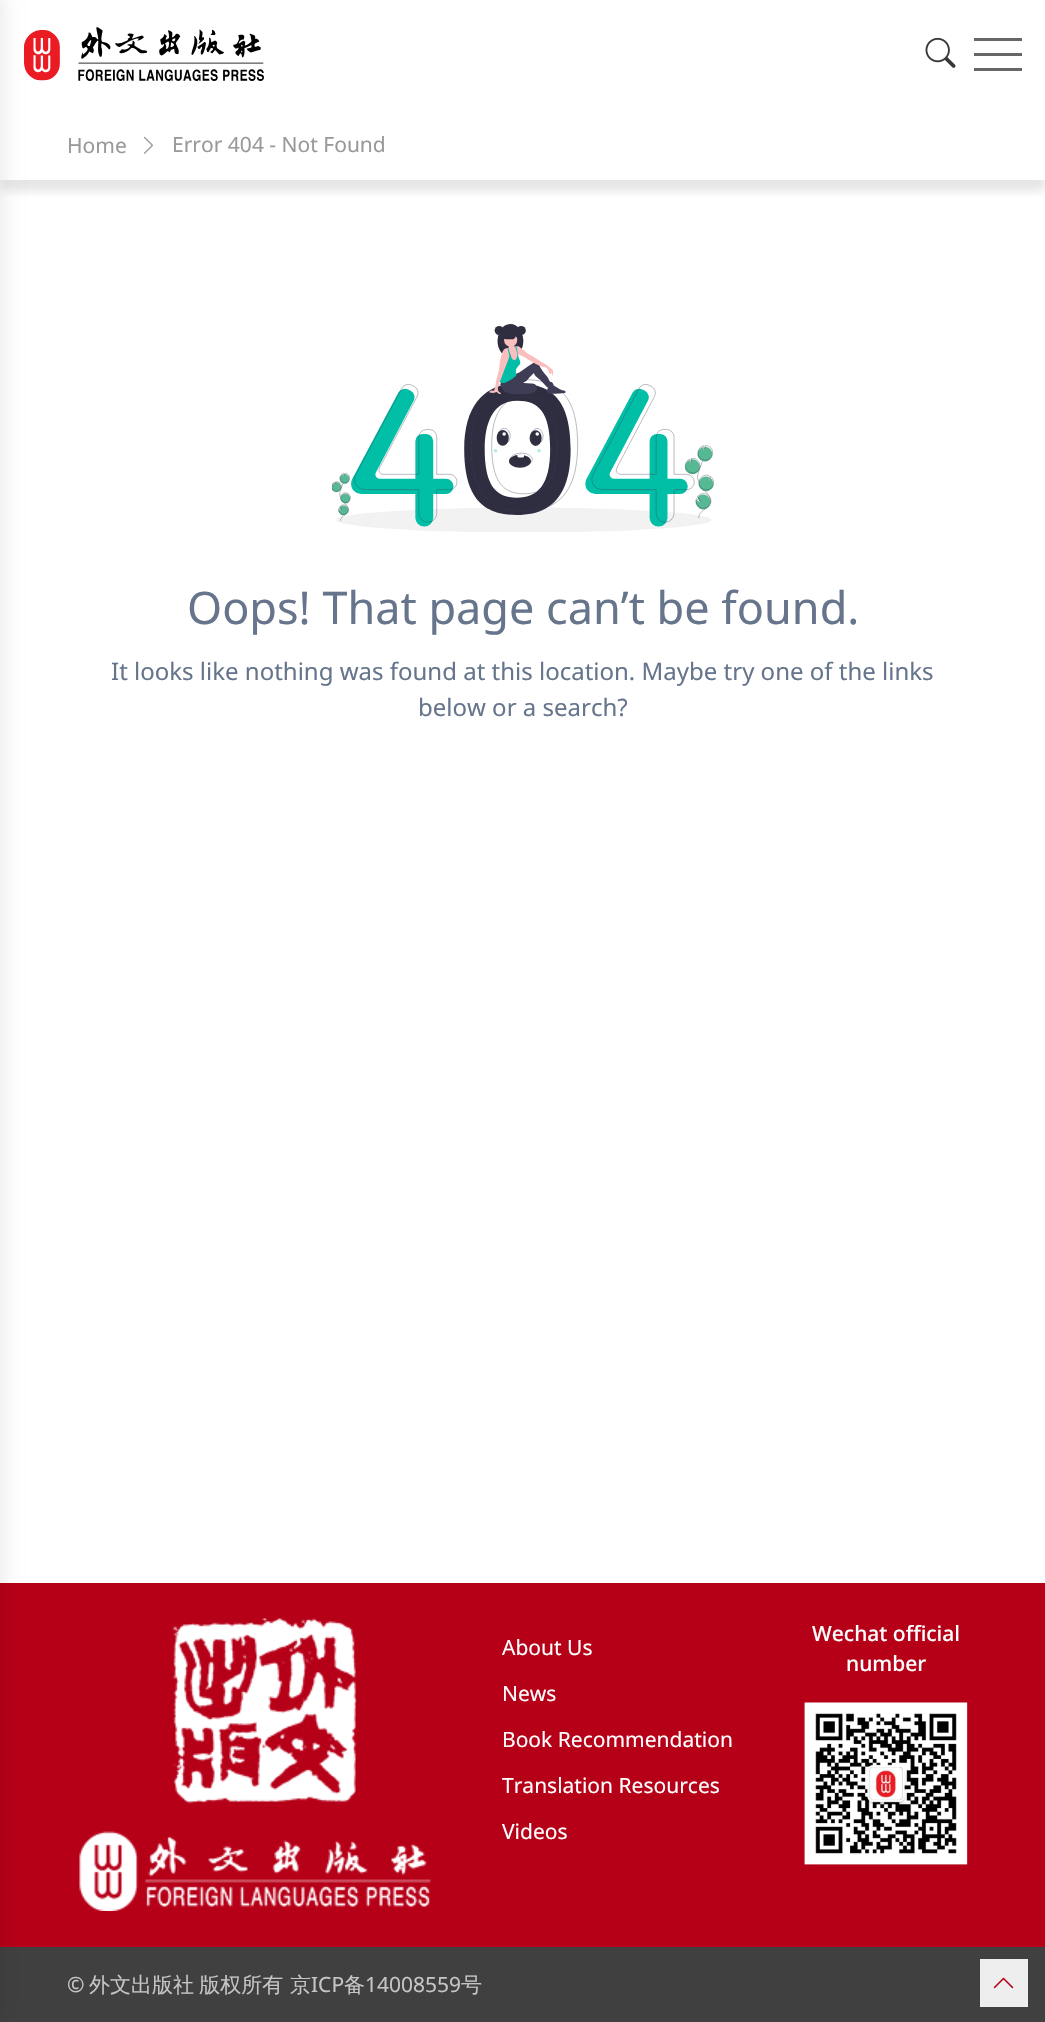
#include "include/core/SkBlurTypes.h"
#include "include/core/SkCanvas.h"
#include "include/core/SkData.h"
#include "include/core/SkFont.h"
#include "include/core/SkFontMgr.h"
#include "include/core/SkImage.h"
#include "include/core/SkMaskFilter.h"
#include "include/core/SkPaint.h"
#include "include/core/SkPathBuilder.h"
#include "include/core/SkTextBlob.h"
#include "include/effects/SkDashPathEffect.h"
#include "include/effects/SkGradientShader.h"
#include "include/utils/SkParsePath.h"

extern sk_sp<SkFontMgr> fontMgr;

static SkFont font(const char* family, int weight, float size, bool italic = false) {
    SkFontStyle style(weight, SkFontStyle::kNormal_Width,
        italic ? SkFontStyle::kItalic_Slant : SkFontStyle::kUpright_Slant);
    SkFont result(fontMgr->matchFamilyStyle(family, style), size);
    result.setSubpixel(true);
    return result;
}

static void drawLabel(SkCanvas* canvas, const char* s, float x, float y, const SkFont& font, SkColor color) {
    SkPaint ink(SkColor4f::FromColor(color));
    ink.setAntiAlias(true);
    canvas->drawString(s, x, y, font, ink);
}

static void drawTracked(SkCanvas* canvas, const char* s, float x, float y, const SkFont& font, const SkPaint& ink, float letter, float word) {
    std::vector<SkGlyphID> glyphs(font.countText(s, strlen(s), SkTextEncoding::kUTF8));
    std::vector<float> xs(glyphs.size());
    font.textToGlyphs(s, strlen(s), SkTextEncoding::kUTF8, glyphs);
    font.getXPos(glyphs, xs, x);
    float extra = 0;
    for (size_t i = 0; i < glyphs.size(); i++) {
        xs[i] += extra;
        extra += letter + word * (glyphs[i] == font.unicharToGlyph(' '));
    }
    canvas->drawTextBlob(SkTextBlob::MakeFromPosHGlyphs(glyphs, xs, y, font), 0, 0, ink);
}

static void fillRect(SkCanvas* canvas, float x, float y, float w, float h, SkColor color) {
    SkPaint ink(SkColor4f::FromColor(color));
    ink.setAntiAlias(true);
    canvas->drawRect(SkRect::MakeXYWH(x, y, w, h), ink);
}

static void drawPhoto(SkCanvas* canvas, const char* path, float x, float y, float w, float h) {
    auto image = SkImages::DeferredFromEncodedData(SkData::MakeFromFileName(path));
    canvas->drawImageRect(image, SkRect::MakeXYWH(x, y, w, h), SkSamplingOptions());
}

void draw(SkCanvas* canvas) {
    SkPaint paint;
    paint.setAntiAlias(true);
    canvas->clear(0xFFFFFFFF);
    drawPhoto(canvas, "assets/img1.png", 24, 27, 240, 54);
    fillRect(canvas, 0, 1583, 1045, 364, 0xFFB60018);
    fillRect(canvas, 0, 1947, 1045, 75, 0xFF404040);
    paint.setColor(0x1A000000);
    paint.setMaskFilter(SkMaskFilter::MakeBlur(kNormal_SkBlurStyle, 11));
    canvas->drawRect(SkRect::MakeXYWH(-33, -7, 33, 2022), paint);
    paint.setMaskFilter(nullptr);
    drawPhoto(canvas, "assets/img2.png", 925, 37, 31, 31);
    fillRect(canvas, 974, 38, 48, 3, 0xFF666666);
    fillRect(canvas, 974, 53, 48, 3, 0xFF666666);
    fillRect(canvas, 974, 68, 48, 3, 0xFF666666);
    canvas->save();
    canvas->clipRect(SkRect::MakeXYWH(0, 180, 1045, 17));
    paint.setColor(0x40999999);
    paint.setMaskFilter(SkMaskFilter::MakeBlur(kNormal_SkBlurStyle, 4.5f));
    canvas->drawRect(SkRect::MakeXYWH(0, 119, 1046, 72), paint);
    paint.setMaskFilter(nullptr);
    canvas->restore();
    SkFont font1 = font("Noto Sans", 400, 21);
    drawLabel(canvas, "Home", 67, 153, font1, 0xFF999999);
    drawPhoto(canvas, "assets/img3.png", 144, 136, 9, 18);
    drawLabel(canvas, "Error 404 - Not Found", 172, 152, font1, 0xFF999999);
    drawPhoto(canvas, "assets/img4.png", 332, 324, 382, 208);
    SkFont font2 = font("Noto Sans", 400, 45);
    drawLabel(canvas, "Oops! That page can’t be found.", 187, 624, font2, 0xFF66758C);
    SkFont font3 = font("Noto Sans", 400, 24);
    drawLabel(canvas, "It looks like nothing was found at this location. Maybe try one of the links", 111, 680, font3, 0xFF66758C);
    drawLabel(canvas, "below or a search?", 418, 716, font3, 0xFF66758C);
    drawPhoto(canvas, "assets/img5.png", 79, 1618, 352, 293);
    drawLabel(canvas, "About Us", 502, 1655, font1, 0xFFFFFFFF);
    drawLabel(canvas, "News", 502, 1701, font1, 0xFFFFFFFF);
    drawLabel(canvas, "Book Recommendation", 502, 1747, font1, 0xFFFFFFFF);
    drawLabel(canvas, "Translation Resources", 502, 1793, font1, 0xFFFFFFFF);
    drawLabel(canvas, "Videos", 502, 1839, font1, 0xFFFFFFFF);
    SkFont font4 = font("Noto Sans", 500, 21);
    drawLabel(canvas, "Wechat official", 812, 1641, font4, 0xFFFFFFFF);
    drawLabel(canvas, "number", 846, 1671, font4, 0xFFFFFFFF);
    drawPhoto(canvas, "assets/img6.png", 804, 1702, 164, 163);
    drawLabel(canvas, "©", 67, 1992, font1, 0xFFC5C5C5);
    SkFont font5 = font("WenQuanYi Zen Hei", 500, 21);
    paint.setColor(0xFFC5C5C5);
    drawTracked(canvas, "外文出版社 版权所有", 89, 1992, font5, paint, 0, -1);
    drawLabel(canvas, "京", 290, 1992, font5, 0xFFC5C5C5);
    drawLabel(canvas, "ICP", 311, 1992, font1, 0xFFC5C5C5);
    drawLabel(canvas, "备", 344, 1992, font5, 0xFFC5C5C5);
    drawLabel(canvas, "14008559", 365, 1992, font1, 0xFFC5C5C5);
    drawLabel(canvas, "号", 461, 1992, font5, 0xFFC5C5C5);
    fillRect(canvas, 980, 1959, 48, 48, 0xFFEEEEEE);
    drawPhoto(canvas, "assets/img7.png", 993, 1977, 21, 12);
}
